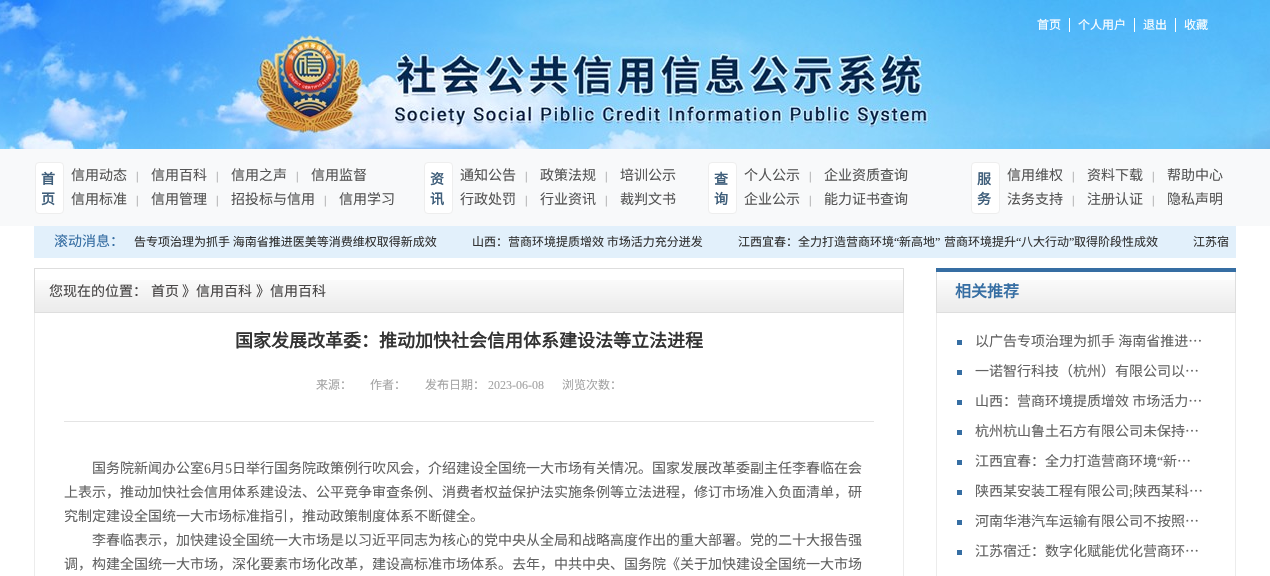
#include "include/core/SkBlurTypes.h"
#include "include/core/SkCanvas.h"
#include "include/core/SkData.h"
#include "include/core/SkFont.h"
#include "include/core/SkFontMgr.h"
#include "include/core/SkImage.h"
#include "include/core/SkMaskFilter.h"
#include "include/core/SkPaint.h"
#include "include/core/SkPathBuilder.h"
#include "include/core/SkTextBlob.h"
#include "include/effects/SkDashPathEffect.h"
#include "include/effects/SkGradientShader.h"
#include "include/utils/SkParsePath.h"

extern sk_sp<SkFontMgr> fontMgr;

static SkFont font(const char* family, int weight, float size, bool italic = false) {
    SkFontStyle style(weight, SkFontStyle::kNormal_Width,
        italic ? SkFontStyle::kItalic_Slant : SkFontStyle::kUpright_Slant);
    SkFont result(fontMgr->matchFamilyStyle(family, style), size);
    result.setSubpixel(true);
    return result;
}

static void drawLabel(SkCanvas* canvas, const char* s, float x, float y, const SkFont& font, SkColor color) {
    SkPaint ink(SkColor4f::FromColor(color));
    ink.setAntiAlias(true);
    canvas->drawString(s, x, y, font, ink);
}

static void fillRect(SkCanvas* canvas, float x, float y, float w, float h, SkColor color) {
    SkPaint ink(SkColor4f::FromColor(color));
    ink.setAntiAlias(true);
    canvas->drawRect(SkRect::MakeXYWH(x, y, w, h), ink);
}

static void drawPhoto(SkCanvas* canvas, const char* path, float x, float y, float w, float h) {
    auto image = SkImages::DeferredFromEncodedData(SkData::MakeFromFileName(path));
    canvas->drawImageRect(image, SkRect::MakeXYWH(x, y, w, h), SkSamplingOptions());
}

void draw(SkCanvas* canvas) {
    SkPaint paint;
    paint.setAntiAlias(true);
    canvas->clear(0xFFFFFFFF);
    drawPhoto(canvas, "assets/img1.png", 0, 0, 1270, 149);
    SkFont font1 = font("Noto Sans CJK SC", 400, 12);
    drawLabel(canvas, "首页", 1037, 29, font1, 0xFFFFFFFF);
    fillRect(canvas, 1069, 18, 1, 14, 0xFFFFFFFF);
    drawLabel(canvas, "个人用户", 1078, 29, font1, 0xFFFFFFFF);
    fillRect(canvas, 1134, 18, 1, 14, 0xFFFFFFFF);
    drawLabel(canvas, "退出", 1143, 29, font1, 0xFFFFFFFF);
    fillRect(canvas, 1175, 18, 1, 14, 0xFFFFFFFF);
    drawLabel(canvas, "收藏", 1184, 29, font1, 0xFFFFFFFF);
    fillRect(canvas, 0, 149, 1270, 77, 0xFFF8F9FA);
    paint.setColor(0xFFFFFFFF);
    canvas->drawRoundRect(SkRect::MakeXYWH(35.5f, 162.5f, 28, 51), 3.5f, 3.5f, paint);
    paint.setStroke(true);
    paint.setStrokeWidth(1);
    paint.setColor(0xFFEEEEEE);
    canvas->drawRoundRect(SkRect::MakeXYWH(35.5f, 162.5f, 28, 51), 3.5f, 3.5f, paint);
    SkFont font2 = font("Noto Sans CJK SC", 700, 14);
    drawLabel(canvas, "首", 41, 184, font2, 0xFF405F7B);
    drawLabel(canvas, "页", 41, 204, font2, 0xFF405F7B);
    SkFont font3 = font("Noto Sans CJK SC", 400, 14);
    drawLabel(canvas, "信用动态", 71, 180, font3, 0xFF555555);
    SkFont font4 = font("Liberation Serif", 400, 12);
    drawLabel(canvas, "|", 136, 180, font4, 0xFF999999);
    drawLabel(canvas, "信用百科", 151, 180, font3, 0xFF555555);
    drawLabel(canvas, "|", 216, 180, font4, 0xFF999999);
    drawLabel(canvas, "信用之声", 231, 180, font3, 0xFF555555);
    drawLabel(canvas, "|", 296, 180, font4, 0xFF999999);
    drawLabel(canvas, "信用监督", 311, 180, font3, 0xFF555555);
    drawLabel(canvas, "信用标准", 71, 204, font3, 0xFF555555);
    drawLabel(canvas, "|", 136, 204, font4, 0xFF999999);
    drawLabel(canvas, "信用管理", 151, 204, font3, 0xFF555555);
    drawLabel(canvas, "|", 216, 204, font4, 0xFF999999);
    drawLabel(canvas, "招投标与信用", 231, 204, font3, 0xFF555555);
    drawLabel(canvas, "|", 324, 204, font4, 0xFF999999);
    drawLabel(canvas, "信用学习", 339, 204, font3, 0xFF555555);
    paint.setStroke(false);
    paint.setColor(0xFFFFFFFF);
    canvas->drawRoundRect(SkRect::MakeXYWH(424.5f, 162.5f, 28, 51), 3.5f, 3.5f, paint);
    paint.setStroke(true);
    paint.setColor(0xFFEEEEEE);
    canvas->drawRoundRect(SkRect::MakeXYWH(424.5f, 162.5f, 28, 51), 3.5f, 3.5f, paint);
    drawLabel(canvas, "资", 430, 184, font2, 0xFF405F7B);
    drawLabel(canvas, "讯", 430, 204, font2, 0xFF405F7B);
    drawLabel(canvas, "通知公告", 460, 180, font3, 0xFF555555);
    drawLabel(canvas, "|", 525, 180, font4, 0xFF999999);
    drawLabel(canvas, "政策法规", 540, 180, font3, 0xFF555555);
    drawLabel(canvas, "|", 605, 180, font4, 0xFF999999);
    drawLabel(canvas, "培训公示", 620, 180, font3, 0xFF555555);
    drawLabel(canvas, "行政处罚", 460, 204, font3, 0xFF555555);
    drawLabel(canvas, "|", 525, 204, font4, 0xFF999999);
    drawLabel(canvas, "行业资讯", 540, 204, font3, 0xFF555555);
    drawLabel(canvas, "|", 605, 204, font4, 0xFF999999);
    drawLabel(canvas, "裁判文书", 620, 204, font3, 0xFF555555);
    paint.setStroke(false);
    paint.setColor(0xFFFFFFFF);
    canvas->drawRoundRect(SkRect::MakeXYWH(708.5f, 162.5f, 28, 51), 3.5f, 3.5f, paint);
    paint.setStroke(true);
    paint.setColor(0xFFEEEEEE);
    canvas->drawRoundRect(SkRect::MakeXYWH(708.5f, 162.5f, 28, 51), 3.5f, 3.5f, paint);
    drawLabel(canvas, "查", 714, 184, font2, 0xFF405F7B);
    drawLabel(canvas, "询", 714, 204, font2, 0xFF405F7B);
    drawLabel(canvas, "个人公示", 744, 180, font3, 0xFF555555);
    drawLabel(canvas, "|", 809, 180, font4, 0xFF999999);
    drawLabel(canvas, "企业资质查询", 824, 180, font3, 0xFF555555);
    drawLabel(canvas, "企业公示", 744, 204, font3, 0xFF555555);
    drawLabel(canvas, "|", 809, 204, font4, 0xFF999999);
    drawLabel(canvas, "能力证书查询", 824, 204, font3, 0xFF555555);
    paint.setStroke(false);
    paint.setColor(0xFFFFFFFF);
    canvas->drawRoundRect(SkRect::MakeXYWH(971.5f, 162.5f, 28, 51), 3.5f, 3.5f, paint);
    paint.setStroke(true);
    paint.setColor(0xFFEEEEEE);
    canvas->drawRoundRect(SkRect::MakeXYWH(971.5f, 162.5f, 28, 51), 3.5f, 3.5f, paint);
    drawLabel(canvas, "服", 977, 184, font2, 0xFF405F7B);
    drawLabel(canvas, "务", 977, 204, font2, 0xFF405F7B);
    drawLabel(canvas, "信用维权", 1007, 180, font3, 0xFF555555);
    drawLabel(canvas, "|", 1072, 180, font4, 0xFF999999);
    drawLabel(canvas, "资料下载", 1087, 180, font3, 0xFF555555);
    drawLabel(canvas, "|", 1152, 180, font4, 0xFF999999);
    drawLabel(canvas, "帮助中心", 1167, 180, font3, 0xFF555555);
    drawLabel(canvas, "法务支持", 1007, 204, font3, 0xFF555555);
    drawLabel(canvas, "|", 1072, 204, font4, 0xFF999999);
    drawLabel(canvas, "注册认证", 1087, 204, font3, 0xFF555555);
    drawLabel(canvas, "|", 1152, 204, font4, 0xFF999999);
    drawLabel(canvas, "隐私声明", 1167, 204, font3, 0xFF555555);
    fillRect(canvas, 34, 226, 1202, 32, 0xFFE2F0FB);
    drawLabel(canvas, "滚动消息：", 54, 246, font3, 0xFF366EA3);
    drawLabel(canvas, "告专项治理为抓手 海南省推进医美等消费维权取得新成效", 134, 246, font1, 0xFF333333);
    drawLabel(canvas, "山西：营商环境提质增效 市场活力充分迸发", 472, 246, font1, 0xFF333333);
    drawLabel(canvas, "江西宜春：全力打造营商环境", 738, 246, font1, 0xFF333333);
    drawLabel(canvas, "“", 894, 246, font4, 0xFF333333);
    drawLabel(canvas, "新高地", 899, 246, font1, 0xFF333333);
    drawLabel(canvas, "”", 935, 246, font4, 0xFF333333);
    drawLabel(canvas, "营商环境提升", 944, 246, font1, 0xFF333333);
    drawLabel(canvas, "“", 1016, 246, font4, 0xFF333333);
    drawLabel(canvas, "八大行动", 1021, 246, font1, 0xFF333333);
    drawLabel(canvas, "”", 1069, 246, font4, 0xFF333333);
    drawLabel(canvas, "取得阶段性成效", 1074, 246, font1, 0xFF333333);
    drawLabel(canvas, "江苏宿", 1193, 246, font1, 0xFF333333);
    drawPhoto(canvas, "assets/img2.png", 35, 280, 868, 32);
    paint.setColor(0xFFDEDEDE);
    canvas->drawRect(SkRect::MakeXYWH(34.5f, 268.5f, 869, 44), paint);
    drawLabel(canvas, "您现在的位置：", 49, 296, font3, 0xFF474545);
    drawLabel(canvas, "首页", 151, 296, font3, 0xFF474545);
    drawLabel(canvas, "》信用百科", 182, 296, font3, 0xFF474545);
    drawLabel(canvas, "》信用百科", 256, 296, font3, 0xFF474545);
    fillRect(canvas, 903, 313, 1, 263, 0xFFECECEC);
    fillRect(canvas, 34, 313, 1, 263, 0xFFECECEC);
    SkFont font5 = font("Noto Sans CJK SC", 700, 18);
    drawLabel(canvas, "国家发展改革委：推动加快社会信用体系建设法等立法进程", 235, 347, font5, 0xFF333333);
    fillRect(canvas, 64, 421, 810, 1, 0xFFE4E4E4);
    drawLabel(canvas, "来源：", 316, 389, font1, 0xFFA4A4A4);
    drawLabel(canvas, "作者：", 370, 389, font1, 0xFFA4A4A4);
    drawLabel(canvas, "发布日期：", 425, 389, font1, 0xFFA4A4A4);
    drawLabel(canvas, "2023-06-08", 488, 389, font4, 0xFFA4A4A4);
    drawLabel(canvas, "浏览次数：", 562, 389, font1, 0xFFA4A4A4);
    drawLabel(canvas, "国务院新闻办公室", 92, 473, font3, 0xFF626262);
    SkFont font6 = font("Liberation Serif", 400, 14);
    drawLabel(canvas, "6", 204, 473, font6, 0xFF626262);
    drawLabel(canvas, "月", 211, 473, font3, 0xFF626262);
    drawLabel(canvas, "5", 225, 473, font6, 0xFF626262);
    drawLabel(canvas, "日举行国务院政策例行吹风会，介绍建设全国统一大市场有关情况。国家发展改革委副主任李春临在会", 232, 473, font3, 0xFF626262);
    drawLabel(canvas, "上表示，推动加快社会信用体系建设法、公平竞争审查条例、消费者权益保护法实施条例等立法进程，修订市场准入负面清单，研", 64, 497, font3, 0xFF626262);
    drawLabel(canvas, "究制定建设全国统一大市场标准指引，推动政策制度体系不断健全。", 64, 521, font3, 0xFF626262);
    drawLabel(canvas, "李春临表示，加快建设全国统一大市场是以习近平同志为核心的党中央从全局和战略高度作出的重大部署。党的二十大报告强", 92, 545, font3, 0xFF626262);
    drawLabel(canvas, "调，构建全国统一大市场，深化要素市场化改革，建设高标准市场体系。去年，中共中央、国务院《关于加快建设全国统一大市场", 64, 569, font3, 0xFF626262);
    fillRect(canvas, 936, 268, 300, 4, 0xFF366EA3);
    drawPhoto(canvas, "assets/img3.png", 937, 280, 298, 32);
    fillRect(canvas, 1235, 272, 1, 41, 0xFFDEDEDE);
    fillRect(canvas, 936, 312, 300, 1, 0xFFDEDEDE);
    fillRect(canvas, 936, 272, 1, 41, 0xFFDEDEDE);
    SkFont font7 = font("Noto Sans CJK SC", 700, 16);
    drawLabel(canvas, "相关推荐", 955, 297, font7, 0xFF366EA3);
    fillRect(canvas, 1235, 313, 1, 263, 0xFFECECEC);
    fillRect(canvas, 936, 313, 1, 263, 0xFFECECEC);
    fillRect(canvas, 957, 340, 5, 5, 0xFF366EA3);
    drawLabel(canvas, "以广告专项治理为抓手 海南省推进…", 975, 346, font3, 0xFF626262);
    fillRect(canvas, 957, 370, 5, 5, 0xFF366EA3);
    drawLabel(canvas, "一诺智行科技（杭州）有限公司以…", 975, 376, font3, 0xFF626262);
    fillRect(canvas, 957, 400, 5, 5, 0xFF366EA3);
    drawLabel(canvas, "山西：营商环境提质增效 市场活力…", 975, 406, font3, 0xFF626262);
    fillRect(canvas, 957, 430, 5, 5, 0xFF366EA3);
    drawLabel(canvas, "杭州杭山鲁土石方有限公司未保持…", 975, 436, font3, 0xFF626262);
    fillRect(canvas, 957, 460, 5, 5, 0xFF366EA3);
    drawLabel(canvas, "江西宜春：全力打造营商环境", 975, 466, font3, 0xFF626262);
    drawLabel(canvas, "“", 1157, 466, font6, 0xFF626262);
    drawLabel(canvas, "新…", 1163, 466, font3, 0xFF626262);
    fillRect(canvas, 957, 490, 5, 5, 0xFF366EA3);
    drawLabel(canvas, "陕西某安装工程有限公司", 975, 496, font3, 0xFF626262);
    drawLabel(canvas, ";", 1129, 496, font6, 0xFF626262);
    drawLabel(canvas, "陕西某科…", 1133, 496, font3, 0xFF626262);
    fillRect(canvas, 957, 520, 5, 5, 0xFF366EA3);
    drawLabel(canvas, "河南华港汽车运输有限公司不按照…", 975, 526, font3, 0xFF626262);
    fillRect(canvas, 957, 550, 5, 5, 0xFF366EA3);
    drawLabel(canvas, "江苏宿迁：数字化赋能优化营商环…", 975, 556, font3, 0xFF626262);
}
